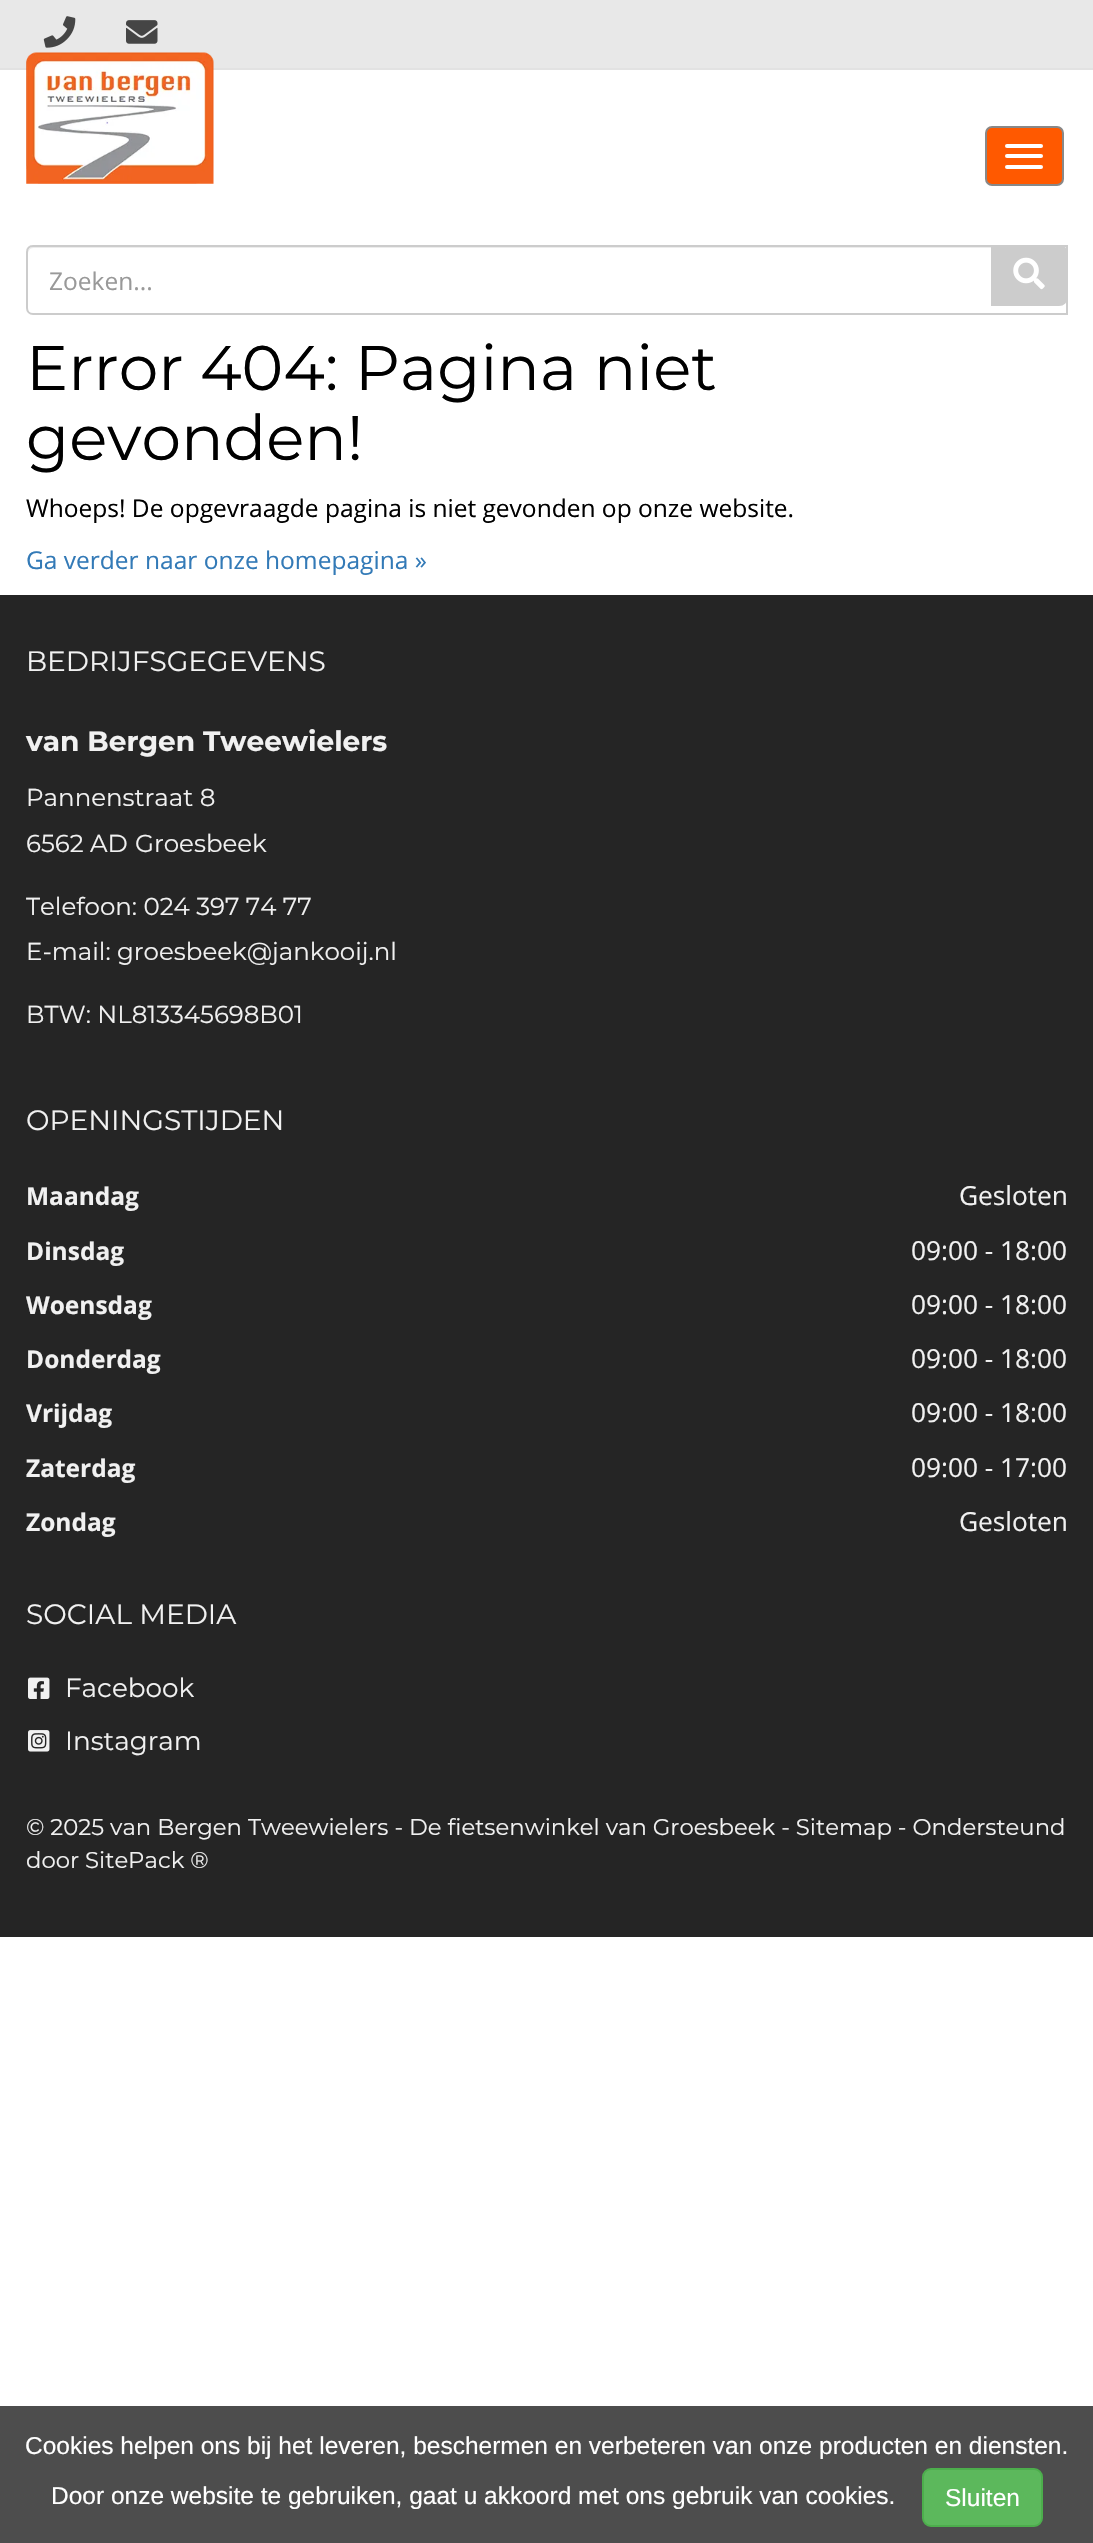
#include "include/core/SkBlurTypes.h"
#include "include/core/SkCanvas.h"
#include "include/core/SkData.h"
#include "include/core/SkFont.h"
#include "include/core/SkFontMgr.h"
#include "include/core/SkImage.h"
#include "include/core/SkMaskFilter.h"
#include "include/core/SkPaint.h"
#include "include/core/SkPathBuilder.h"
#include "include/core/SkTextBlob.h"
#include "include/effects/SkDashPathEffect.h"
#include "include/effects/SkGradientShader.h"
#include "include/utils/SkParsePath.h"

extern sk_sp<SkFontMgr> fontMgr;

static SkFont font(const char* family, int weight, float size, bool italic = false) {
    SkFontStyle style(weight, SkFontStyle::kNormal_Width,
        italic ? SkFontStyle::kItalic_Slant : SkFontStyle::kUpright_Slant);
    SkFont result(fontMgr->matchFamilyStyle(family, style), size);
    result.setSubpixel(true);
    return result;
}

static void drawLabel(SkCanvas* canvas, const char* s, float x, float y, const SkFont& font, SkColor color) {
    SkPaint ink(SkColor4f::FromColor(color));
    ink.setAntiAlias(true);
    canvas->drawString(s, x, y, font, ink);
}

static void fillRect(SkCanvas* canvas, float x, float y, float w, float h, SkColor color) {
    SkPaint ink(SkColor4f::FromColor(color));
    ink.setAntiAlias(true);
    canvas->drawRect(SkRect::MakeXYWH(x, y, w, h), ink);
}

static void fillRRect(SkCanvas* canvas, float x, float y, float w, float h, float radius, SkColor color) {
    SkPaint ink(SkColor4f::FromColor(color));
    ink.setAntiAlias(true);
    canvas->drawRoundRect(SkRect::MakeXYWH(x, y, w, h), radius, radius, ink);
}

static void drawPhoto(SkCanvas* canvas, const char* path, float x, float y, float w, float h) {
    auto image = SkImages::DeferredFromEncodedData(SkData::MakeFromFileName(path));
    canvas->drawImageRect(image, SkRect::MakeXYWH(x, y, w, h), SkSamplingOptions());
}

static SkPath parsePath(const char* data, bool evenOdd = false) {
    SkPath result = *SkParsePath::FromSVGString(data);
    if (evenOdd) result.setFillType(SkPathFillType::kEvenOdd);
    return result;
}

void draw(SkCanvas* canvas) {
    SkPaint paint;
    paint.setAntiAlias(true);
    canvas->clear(0xFFFFFFFF);
    fillRect(canvas, 0, 0, 1093, 68, 0xFFE8E8E8);
    fillRect(canvas, 0, 68, 1093, 2, 0xFFE2E2E2);
    drawPhoto(canvas, "assets/img1.png", 43, 16, 33, 32);
    drawPhoto(canvas, "assets/img2.png", 126, 20, 32, 24);
    drawPhoto(canvas, "assets/img3.png", 26, 52, 188, 132);
    paint.setColor(0xFFFF5900);
    canvas->drawRoundRect(SkRect::MakeXYWH(986, 127, 77, 58), 6, 6, paint);
    paint.setStroke(true);
    paint.setStrokeWidth(2);
    paint.setColor(0xFF888888);
    canvas->drawRoundRect(SkRect::MakeXYWH(986, 127, 77, 58), 6, 6, paint);
    fillRRect(canvas, 1005, 144, 38, 4, 2, 0xFFFFFFFF);
    fillRRect(canvas, 1005, 154, 38, 4, 2, 0xFFFFFFFF);
    fillRRect(canvas, 1005, 165, 38, 4, 2, 0xFFFFFFFF);
    paint.setColor(0xFFCCCCCC);
    canvas->drawPath(parsePath("M33 246H991V304H33C29.5 304 27 301.5 27 298V252C27 248.5 29.5 246 33 246Z"), paint);
    paint.setStroke(false);
    paint.setColor(0xFFFFFFFF);
    canvas->drawPath(parsePath("M33 245H1068V315H33C29 315 26 312 26 308V252C26 248 29 245 33 245Z"), paint);
    paint.setColor(0xFFECECEC);
    canvas->drawPath(parsePath("M33 248H1066V247H33C30 247 28 249 28 252V254C28 251 30 248 33 248Z"), paint);
    paint.setStroke(true);
    paint.setColor(0xFFCCCCCC);
    canvas->drawPath(parsePath("M33 246H1067V314H33C29.5 314 27 311.5 27 308V252C27 248.5 29.5 246 33 246Z"), paint);
    paint.setStroke(false);
    canvas->drawPath(parsePath("M992 246H1059C1063.5 246 1067 249.5 1067 254V297C1067 301.5 1063.5 305 1059 305H992Z"), paint);
    paint.setStroke(true);
    canvas->drawPath(parsePath("M992 246H1059C1063.5 246 1067 249.5 1067 254V297C1067 301.5 1063.5 305 1059 305H992Z"), paint);
    drawPhoto(canvas, "assets/img4.png", 1013, 257, 32, 33);
    SkFont font1 = font("Open Sans", 400, 24.5f);
    drawLabel(canvas, "Zoeken...", 49, 290, font1, 0xFF999999);
    SkFont font2 = font("Montserrat", 400, 63);
    drawLabel(canvas, "Error 404: Pagina niet", 26, 390, font2, 0xFF000000);
    drawLabel(canvas, "gevonden!", 26, 460, font2, 0xFF000000);
    drawLabel(canvas, "Whoeps! De opgevraagde pagina is niet gevonden op onze website.", 26, 517, font1, 0xFF000000);
    drawLabel(canvas, "Ga verder naar onze homepagina »", 26, 569, font1, 0xFF337AB7);
    fillRect(canvas, 0, 595, 1093, 1342, 0xFF252525);
    SkFont font3 = font("Montserrat", 400, 28);
    drawLabel(canvas, "BEDRIJFSGEGEVENS", 26, 671, font3, 0xFFF1F1F1);
    SkFont font4 = font("Montserrat", 700, 28);
    drawLabel(canvas, "van Bergen Tweewielers", 26, 751, font4, 0xFFF1F1F1);
    SkFont font5 = font("Montserrat", 400, 24.5f);
    drawLabel(canvas, "Pannenstraat 8", 26, 806, font5, 0xFFF1F1F1);
    drawLabel(canvas, "6562 AD", 26, 852, font5, 0xFFF1F1F1);
    drawLabel(canvas, "Groesbeek", 135, 852, font5, 0xFFF1F1F1);
    drawLabel(canvas, "Telefoon: 024 397 74 77", 26, 915, font5, 0xFFF1F1F1);
    drawLabel(canvas, "E-mail: groesbeek@jankooij.nl", 26, 960, font5, 0xFFF1F1F1);
    drawLabel(canvas, "BTW: NL813345698B01", 26, 1023, font5, 0xFFF1F1F1);
    drawLabel(canvas, "OPENINGSTIJDEN", 26, 1130, font3, 0xFFF1F1F1);
    SkFont font6 = font("Open Sans", 700, 24.5f);
    drawLabel(canvas, "Maandag", 26, 1205, font6, 0xFFF1F1F1);
    SkFont font7 = font("Open Sans", 400, 26.25f);
    drawLabel(canvas, "Gesloten", 959, 1205, font7, 0xFFF1F1F1);
    drawLabel(canvas, "Dinsdag", 26, 1260, font6, 0xFFF1F1F1);
    drawLabel(canvas, "09:00 - 18:00", 911, 1260, font7, 0xFFF1F1F1);
    drawLabel(canvas, "Woensdag", 26, 1314, font6, 0xFFF1F1F1);
    drawLabel(canvas, "09:00 - 18:00", 911, 1314, font7, 0xFFF1F1F1);
    drawLabel(canvas, "Donderdag", 26, 1368, font6, 0xFFF1F1F1);
    drawLabel(canvas, "09:00 - 18:00", 911, 1368, font7, 0xFFF1F1F1);
    drawLabel(canvas, "Vrijdag", 26, 1422, font6, 0xFFF1F1F1);
    drawLabel(canvas, "09:00 - 18:00", 911, 1422, font7, 0xFFF1F1F1);
    drawLabel(canvas, "Zaterdag", 26, 1477, font6, 0xFFF1F1F1);
    drawLabel(canvas, "09:00 - 17:00", 911, 1477, font7, 0xFFF1F1F1);
    drawLabel(canvas, "Zondag", 26, 1531, font6, 0xFFF1F1F1);
    drawLabel(canvas, "Gesloten", 959, 1531, font7, 0xFFF1F1F1);
    drawLabel(canvas, "SOCIAL MEDIA", 26, 1624, font3, 0xFFF1F1F1);
    drawPhoto(canvas, "assets/img5.png", 28, 1677, 22, 22);
    SkFont font8 = font("Montserrat", 400, 26.25f);
    drawLabel(canvas, "Facebook", 65, 1697, font8, 0xFFF1F1F1);
    drawPhoto(canvas, "assets/img6.png", 28, 1730, 22, 22);
    drawLabel(canvas, "Instagram", 65, 1750, font8, 0xFFF1F1F1);
    SkFont font9 = font("Montserrat", 400, 22.75f);
    drawLabel(canvas, "© 2025 van Bergen Tweewielers - De fietsenwinkel van Groesbeek - Sitemap - Ondersteund", 26, 1835, font9, 0xFFF1F1F1);
    drawLabel(canvas, "door SitePack ®", 26, 1868, font9, 0xFFF1F1F1);
    fillRect(canvas, 0, 2406, 1093, 137, 0xFF4D4D4D);
    SkFont font10 = font("Liberation Sans", 400, 24.5f);
    drawLabel(canvas, "Cookies helpen ons bij het leveren, beschermen en verbeteren van onze producten en diensten.", 25, 2454, font10, 0xFFFFFFFF);
    drawLabel(canvas, "Door onze website te gebruiken, gaat u akkoord met ons gebruik van cookies.", 51, 2504, font10, 0xFFFFFFFF);
    paint.setStroke(false);
    paint.setColor(0xFF5CB85C);
    canvas->drawRoundRect(SkRect::MakeXYWH(923, 2469, 119, 57), 8, 8, paint);
    paint.setStroke(true);
    paint.setColor(0xFF4CAE4C);
    canvas->drawRoundRect(SkRect::MakeXYWH(923, 2469, 119, 57), 8, 8, paint);
    drawLabel(canvas, "Sluiten", 945, 2506, font10, 0xFFFFFFFF);
}
